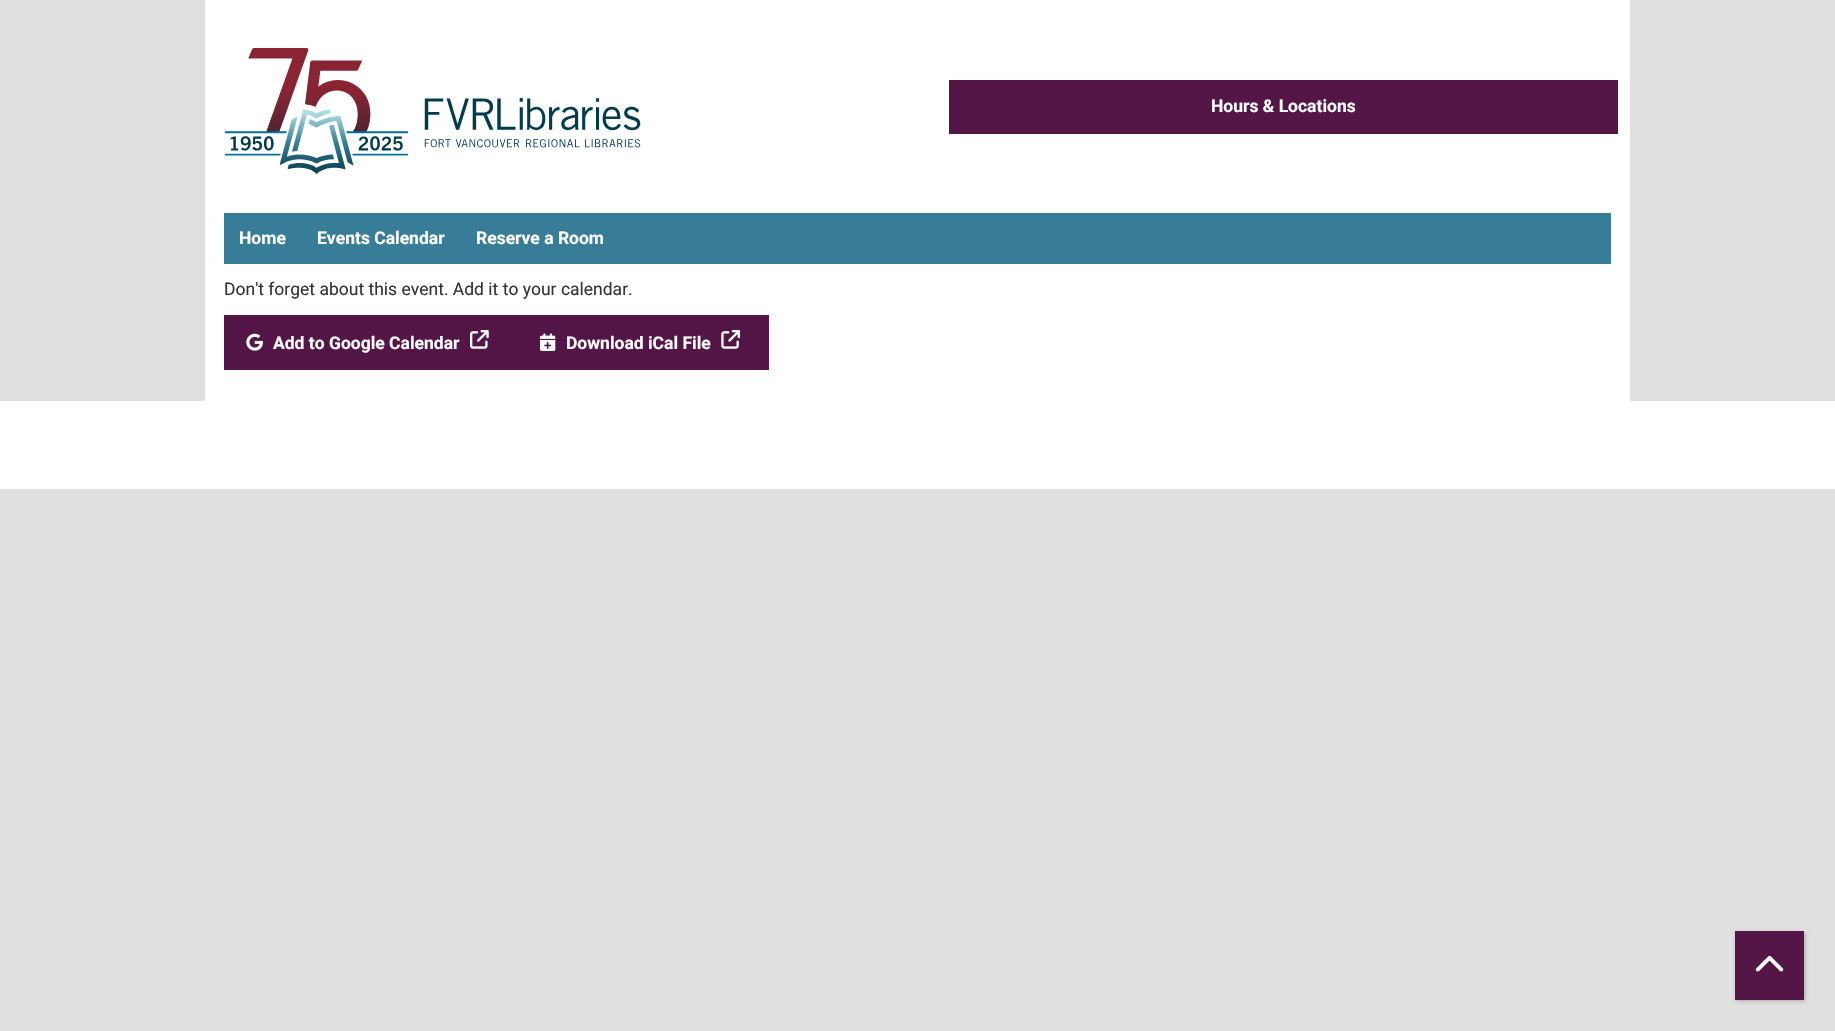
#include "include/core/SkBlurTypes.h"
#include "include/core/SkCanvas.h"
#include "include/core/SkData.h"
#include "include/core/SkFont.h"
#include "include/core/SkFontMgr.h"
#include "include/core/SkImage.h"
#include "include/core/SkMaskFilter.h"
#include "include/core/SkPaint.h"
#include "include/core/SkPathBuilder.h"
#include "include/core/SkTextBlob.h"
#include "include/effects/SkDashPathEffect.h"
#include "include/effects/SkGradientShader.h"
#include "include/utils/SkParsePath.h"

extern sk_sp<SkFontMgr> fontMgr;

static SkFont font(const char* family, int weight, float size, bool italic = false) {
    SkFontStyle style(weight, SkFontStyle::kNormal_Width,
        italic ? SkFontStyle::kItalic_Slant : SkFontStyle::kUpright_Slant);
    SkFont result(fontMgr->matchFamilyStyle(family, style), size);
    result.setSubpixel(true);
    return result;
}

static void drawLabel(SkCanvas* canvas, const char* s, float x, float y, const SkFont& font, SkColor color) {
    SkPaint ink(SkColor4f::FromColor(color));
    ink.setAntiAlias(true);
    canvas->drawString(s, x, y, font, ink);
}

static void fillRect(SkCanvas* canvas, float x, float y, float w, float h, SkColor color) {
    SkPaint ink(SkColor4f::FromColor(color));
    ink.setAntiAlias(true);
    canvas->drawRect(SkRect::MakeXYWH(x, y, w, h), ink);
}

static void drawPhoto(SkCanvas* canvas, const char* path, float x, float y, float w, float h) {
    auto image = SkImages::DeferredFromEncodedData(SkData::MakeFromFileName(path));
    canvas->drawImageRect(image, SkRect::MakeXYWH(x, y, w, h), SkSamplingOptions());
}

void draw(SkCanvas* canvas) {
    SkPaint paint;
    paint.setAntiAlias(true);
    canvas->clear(0xFFE0E0E0);
    fillRect(canvas, 205, 0, 1425, 401, 0xFFFFFFFF);
    drawPhoto(canvas, "assets/img1.png", 224, 48, 417, 126);
    fillRect(canvas, 949, 80, 669, 54, 0xFF541547);
    SkFont font1 = font("Roboto", 700, 17.5f);
    drawLabel(canvas, "Hours & Locations", 1211, 112, font1, 0xFFFFFFFF);
    fillRect(canvas, 224, 213, 1387, 51, 0xFF377D98);
    drawLabel(canvas, "Home", 239, 244, font1, 0xFFFFFFFF);
    drawLabel(canvas, "Events Calendar", 317, 244, font1, 0xFFFFFFFF);
    drawLabel(canvas, "Reserve a Room", 476, 244, font1, 0xFFFFFFFF);
    SkFont font2 = font("Roboto", 400, 17.5f);
    drawLabel(canvas, "Don't forget about this event. Add it to your calendar.", 224, 295, font2, 0xFF333333);
    fillRect(canvas, 224, 315, 545, 55, 0xFF541547);
    drawPhoto(canvas, "assets/img2.png", 246, 333, 17, 18);
    drawLabel(canvas, "Add to Google Calendar", 273, 349, font1, 0xFFFFFFFF);
    drawPhoto(canvas, "assets/img3.png", 470, 330, 19, 19);
    drawPhoto(canvas, "assets/img4.png", 540, 333, 16, 18);
    drawLabel(canvas, "Download iCal File", 566, 349, font1, 0xFFFFFFFF);
    drawPhoto(canvas, "assets/img5.png", 721, 330, 19, 19);
    fillRect(canvas, 0, 401, 1835, 88, 0xFFFFFFFF);
    paint.setColor(0x40000000);
    paint.setMaskFilter(SkMaskFilter::MakeBlur(kNormal_SkBlurStyle, 2));
    canvas->drawRect(SkRect::MakeXYWH(1736, 933, 69, 68), paint);
    paint.setMaskFilter(nullptr);
    fillRect(canvas, 1735, 931, 69, 69, 0xFF541547);
    drawPhoto(canvas, "assets/img6.png", 1755, 955, 29, 17);
}
